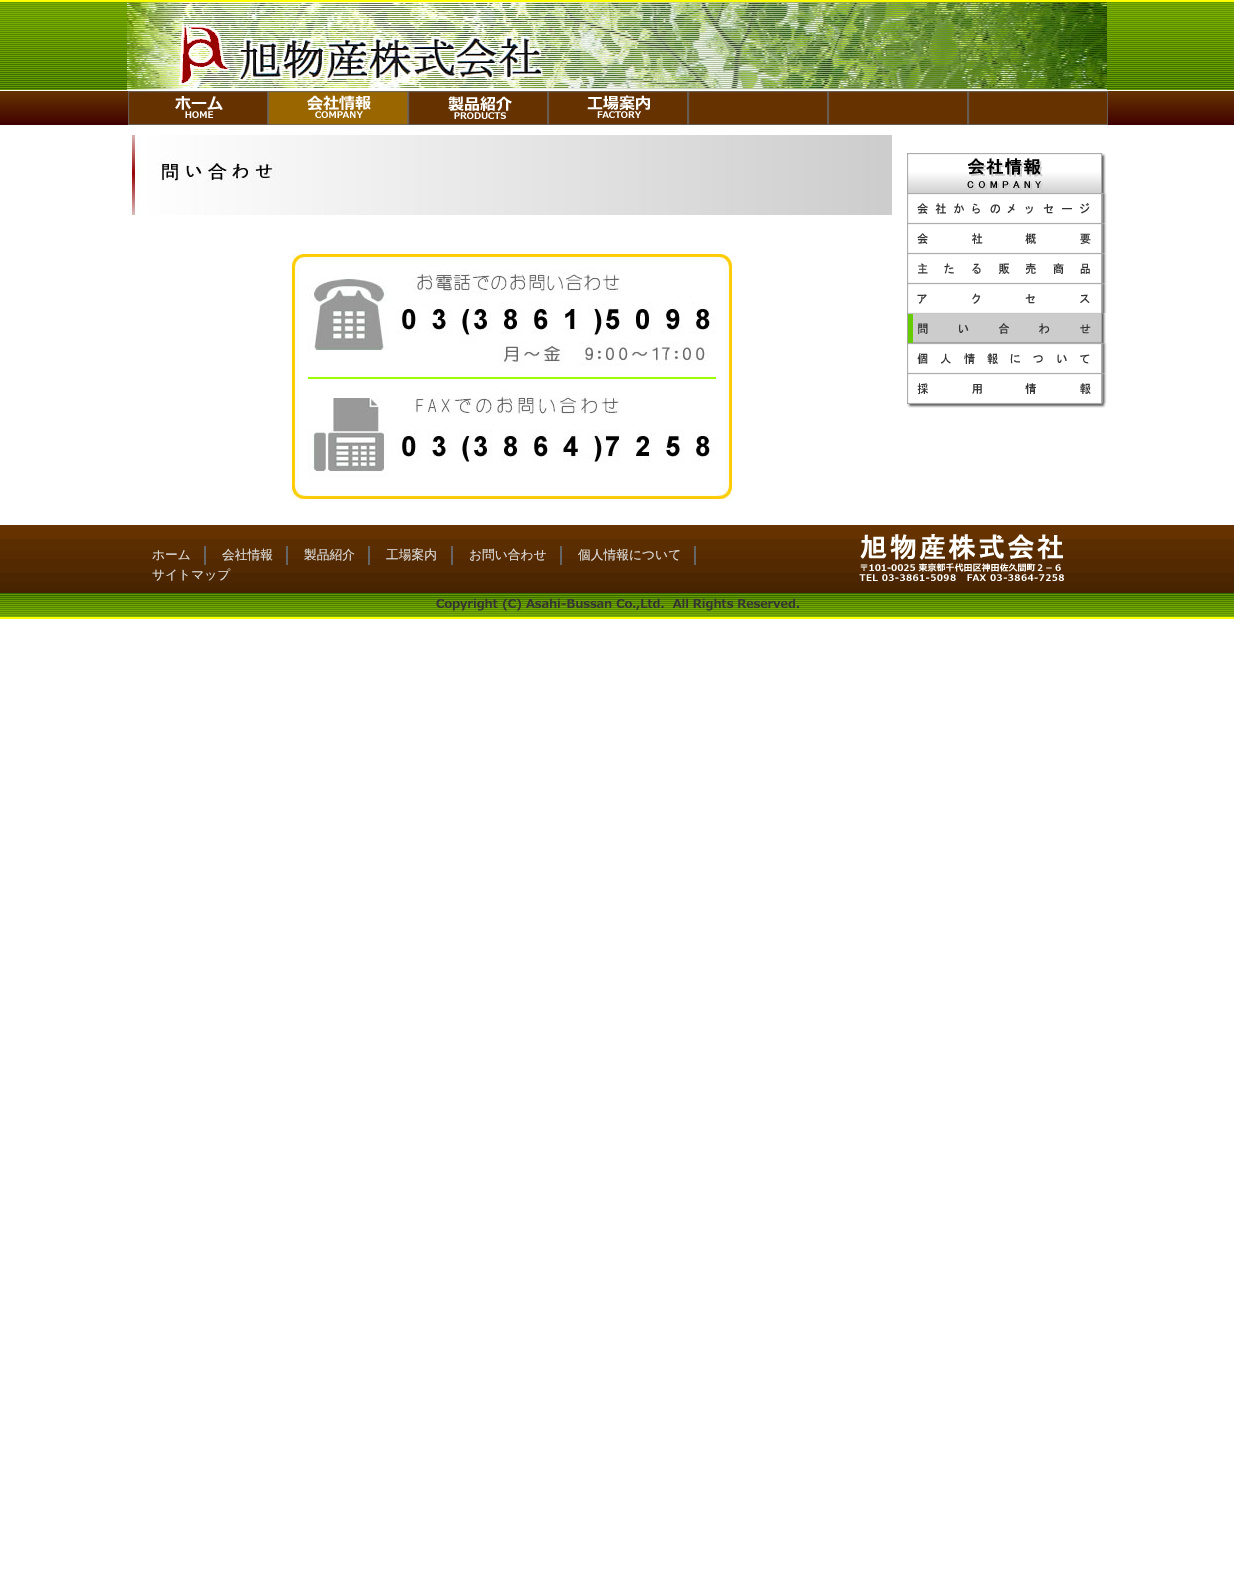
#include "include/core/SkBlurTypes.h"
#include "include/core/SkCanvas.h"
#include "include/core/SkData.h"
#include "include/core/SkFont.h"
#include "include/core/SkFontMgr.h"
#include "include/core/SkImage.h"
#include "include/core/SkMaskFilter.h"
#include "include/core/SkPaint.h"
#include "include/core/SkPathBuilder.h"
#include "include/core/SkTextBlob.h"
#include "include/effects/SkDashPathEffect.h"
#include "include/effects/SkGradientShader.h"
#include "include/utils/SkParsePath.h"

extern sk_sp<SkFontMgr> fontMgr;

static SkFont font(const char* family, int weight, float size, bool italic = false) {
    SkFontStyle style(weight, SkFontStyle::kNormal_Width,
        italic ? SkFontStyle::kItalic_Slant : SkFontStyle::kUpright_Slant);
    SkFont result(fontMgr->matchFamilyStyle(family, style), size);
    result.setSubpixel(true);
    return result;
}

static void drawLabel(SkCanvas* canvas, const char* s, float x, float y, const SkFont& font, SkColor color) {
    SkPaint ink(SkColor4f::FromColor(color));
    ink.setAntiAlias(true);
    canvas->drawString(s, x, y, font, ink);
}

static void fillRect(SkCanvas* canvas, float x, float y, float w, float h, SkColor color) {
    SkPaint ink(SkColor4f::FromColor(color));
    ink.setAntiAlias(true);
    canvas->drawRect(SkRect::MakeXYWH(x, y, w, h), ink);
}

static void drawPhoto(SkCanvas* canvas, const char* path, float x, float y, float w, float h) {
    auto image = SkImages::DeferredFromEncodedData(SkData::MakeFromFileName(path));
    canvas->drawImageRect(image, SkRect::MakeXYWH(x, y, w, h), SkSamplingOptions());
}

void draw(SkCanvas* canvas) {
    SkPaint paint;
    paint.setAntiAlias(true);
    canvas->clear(0xFFFFFFFF);
    drawPhoto(canvas, "assets/img1.png", 0, 0, 1234, 125);
    drawPhoto(canvas, "assets/img2.png", 127, 0, 980, 90);
    drawPhoto(canvas, "assets/img3.png", 128, 91, 140, 34);
    drawPhoto(canvas, "assets/img4.png", 268, 91, 140, 34);
    drawPhoto(canvas, "assets/img5.png", 408, 91, 140, 34);
    drawPhoto(canvas, "assets/img6.png", 548, 91, 140, 34);
    drawPhoto(canvas, "assets/img7.png", 688, 91, 140, 34);
    drawPhoto(canvas, "assets/img7.png", 828, 91, 140, 34);
    drawPhoto(canvas, "assets/img7.png", 968, 91, 140, 34);
    drawPhoto(canvas, "assets/img8.png", 132, 135, 760, 80);
    drawPhoto(canvas, "assets/img9.png", 292, 254, 440, 245);
    drawPhoto(canvas, "assets/img10.png", 907, 153, 199, 40);
    drawPhoto(canvas, "assets/img11.png", 907, 193, 200, 30);
    drawPhoto(canvas, "assets/img12.png", 907, 223, 200, 30);
    drawPhoto(canvas, "assets/img13.png", 907, 253, 200, 30);
    drawPhoto(canvas, "assets/img14.png", 907, 283, 200, 30);
    drawPhoto(canvas, "assets/img15.png", 907, 313, 199, 30);
    drawPhoto(canvas, "assets/img16.png", 907, 343, 200, 30);
    drawPhoto(canvas, "assets/img17.png", 907, 373, 200, 30);
    drawPhoto(canvas, "assets/img18.png", 907, 403, 199, 5);
    drawPhoto(canvas, "assets/img19.png", 0, 525, 1234, 94);
    fillRect(canvas, 204, 546, 2, 19, 0xFF666666);
    SkFont font1 = font("WenQuanYi Zen Hei", 500, 12.75f);
    drawLabel(canvas, "ホーム", 152, 559, font1, 0xFFDDDDDD);
    fillRect(canvas, 286, 546, 2, 19, 0xFF666666);
    drawLabel(canvas, "会社情報", 222, 559, font1, 0xFFDDDDDD);
    fillRect(canvas, 368, 546, 2, 19, 0xFF666666);
    drawLabel(canvas, "製品紹介", 304, 559, font1, 0xFFDDDDDD);
    fillRect(canvas, 451, 546, 2, 19, 0xFF666666);
    drawLabel(canvas, "工場案内", 386, 559, font1, 0xFFDDDDDD);
    fillRect(canvas, 560, 546, 2, 19, 0xFF666666);
    drawLabel(canvas, "お問い合わせ", 469, 559, font1, 0xFFDDDDDD);
    fillRect(canvas, 694, 546, 2, 19, 0xFF666666);
    drawLabel(canvas, "個人情報について", 578, 559, font1, 0xFFDDDDDD);
    drawLabel(canvas, "サイトマップ", 152, 579, font1, 0xFFDDDDDD);
    drawPhoto(canvas, "assets/img20.png", 859, 534, 205, 47);
    drawPhoto(canvas, "assets/img21.png", 436, 598, 363, 13);
}
